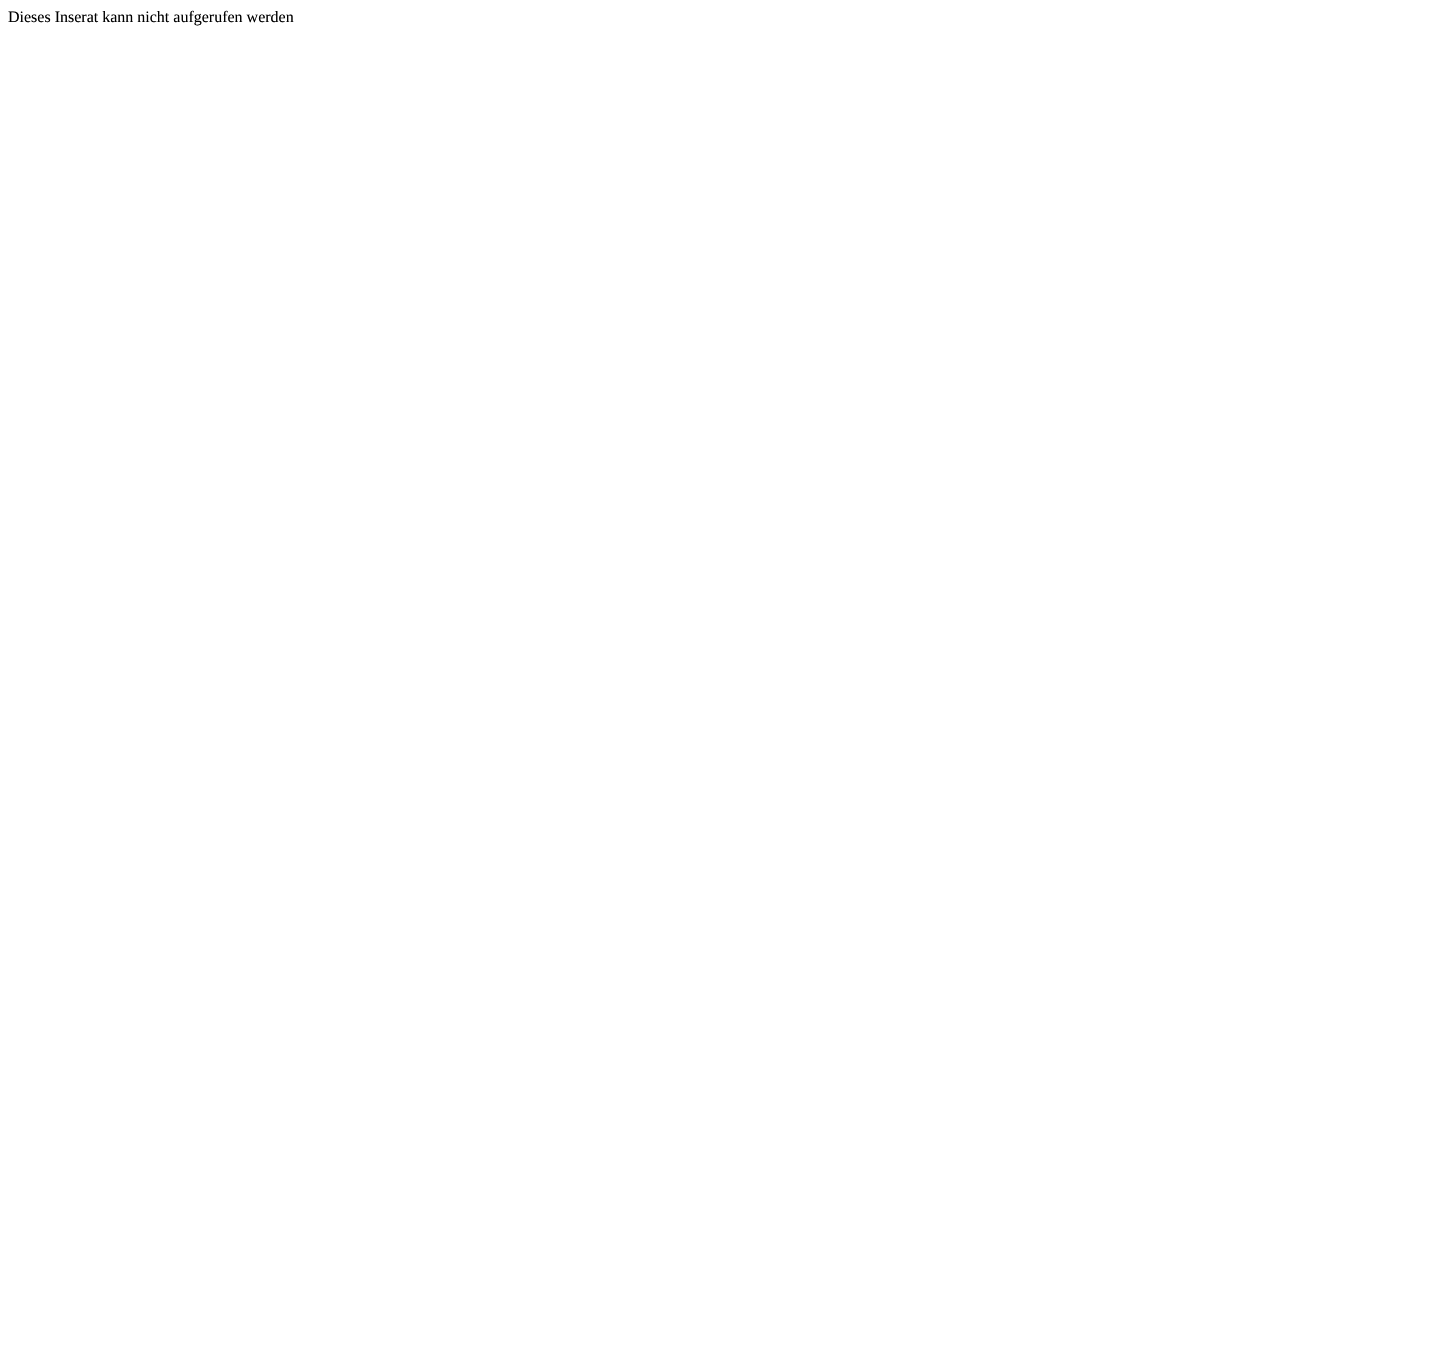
#include "include/core/SkBlurTypes.h"
#include "include/core/SkCanvas.h"
#include "include/core/SkData.h"
#include "include/core/SkFont.h"
#include "include/core/SkFontMgr.h"
#include "include/core/SkImage.h"
#include "include/core/SkMaskFilter.h"
#include "include/core/SkPaint.h"
#include "include/core/SkPathBuilder.h"
#include "include/core/SkTextBlob.h"
#include "include/effects/SkDashPathEffect.h"
#include "include/effects/SkGradientShader.h"
#include "include/utils/SkParsePath.h"

extern sk_sp<SkFontMgr> fontMgr;

static SkFont font(const char* family, int weight, float size, bool italic = false) {
    SkFontStyle style(weight, SkFontStyle::kNormal_Width,
        italic ? SkFontStyle::kItalic_Slant : SkFontStyle::kUpright_Slant);
    SkFont result(fontMgr->matchFamilyStyle(family, style), size);
    result.setSubpixel(true);
    return result;
}

static void drawLabel(SkCanvas* canvas, const char* s, float x, float y, const SkFont& font, SkColor color) {
    SkPaint ink(SkColor4f::FromColor(color));
    ink.setAntiAlias(true);
    canvas->drawString(s, x, y, font, ink);
}

void draw(SkCanvas* canvas) {
    SkPaint paint;
    paint.setAntiAlias(true);
    canvas->clear(0xFFFFFFFF);
    SkFont font1 = font("Liberation Serif", 400, 16);
    drawLabel(canvas, "Dieses Inserat kann nicht aufgerufen werden", 8, 22, font1, 0xFF000000);
}
